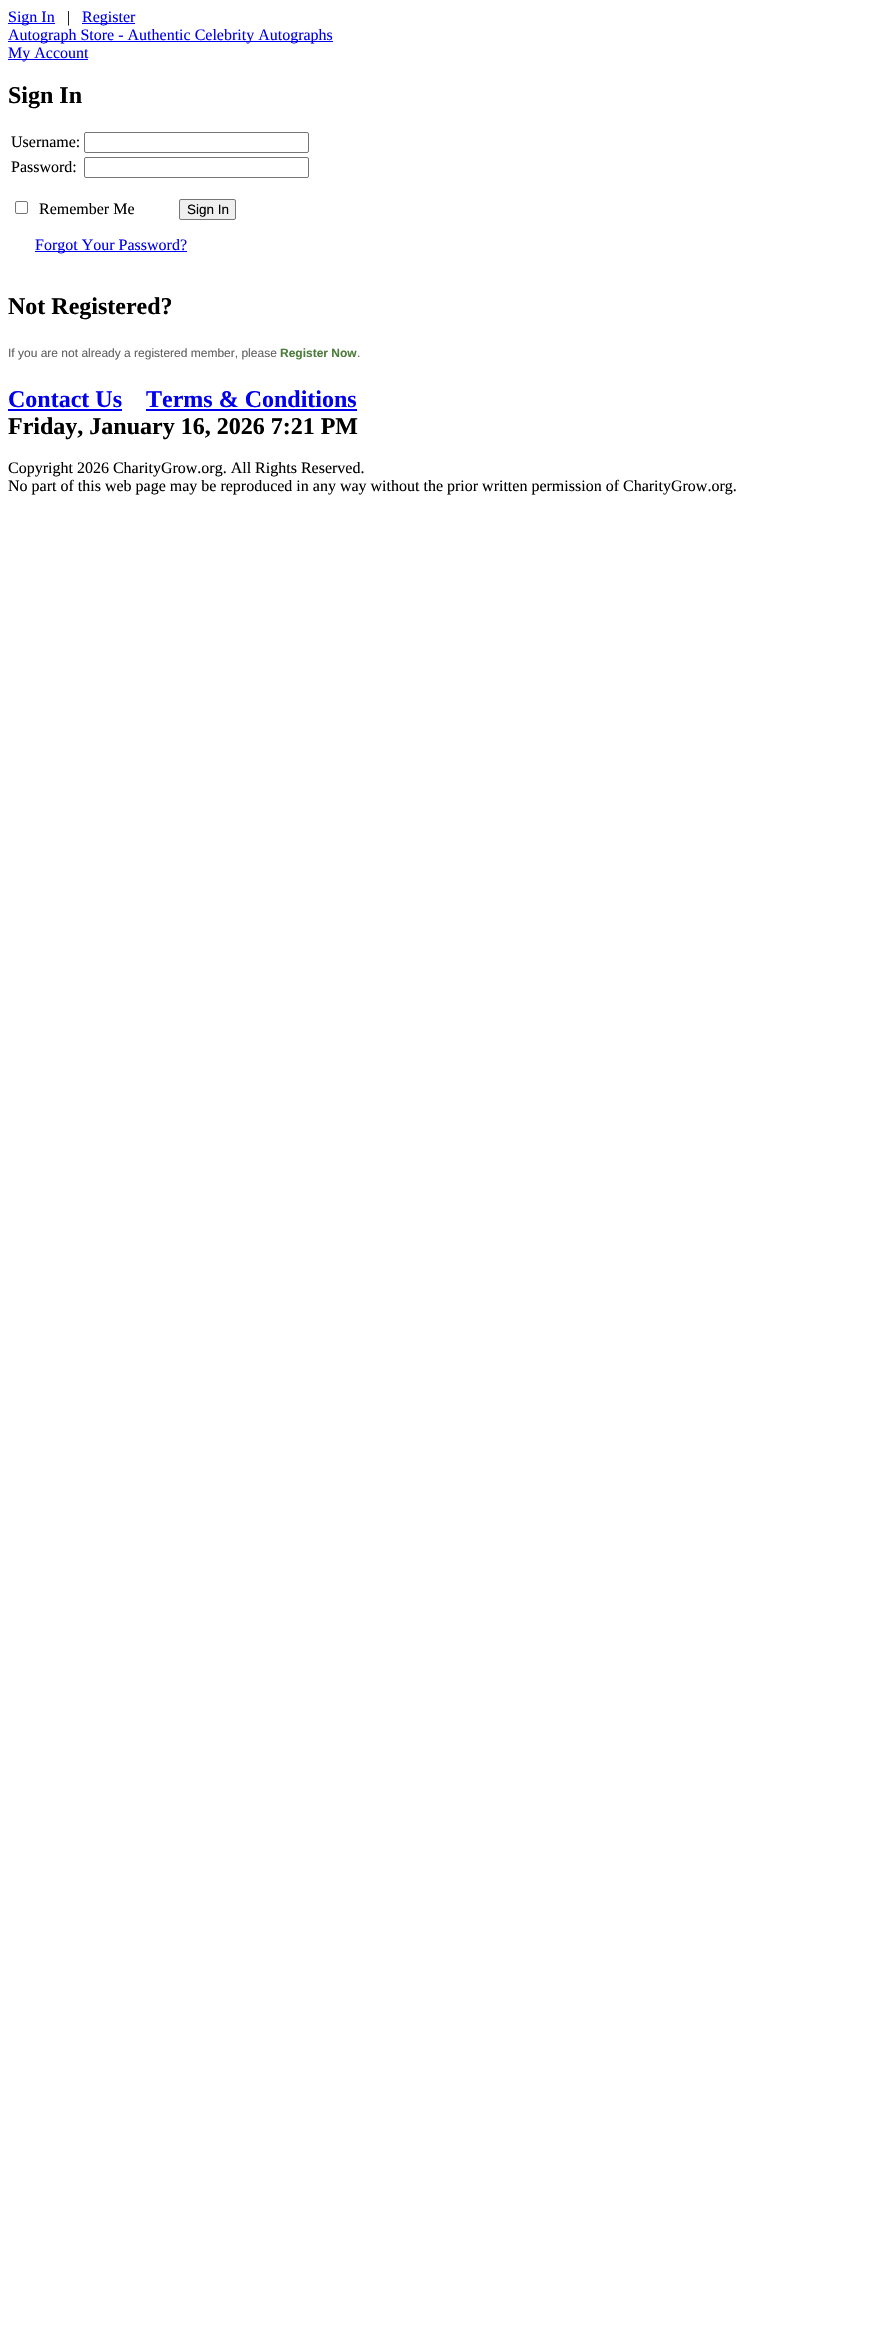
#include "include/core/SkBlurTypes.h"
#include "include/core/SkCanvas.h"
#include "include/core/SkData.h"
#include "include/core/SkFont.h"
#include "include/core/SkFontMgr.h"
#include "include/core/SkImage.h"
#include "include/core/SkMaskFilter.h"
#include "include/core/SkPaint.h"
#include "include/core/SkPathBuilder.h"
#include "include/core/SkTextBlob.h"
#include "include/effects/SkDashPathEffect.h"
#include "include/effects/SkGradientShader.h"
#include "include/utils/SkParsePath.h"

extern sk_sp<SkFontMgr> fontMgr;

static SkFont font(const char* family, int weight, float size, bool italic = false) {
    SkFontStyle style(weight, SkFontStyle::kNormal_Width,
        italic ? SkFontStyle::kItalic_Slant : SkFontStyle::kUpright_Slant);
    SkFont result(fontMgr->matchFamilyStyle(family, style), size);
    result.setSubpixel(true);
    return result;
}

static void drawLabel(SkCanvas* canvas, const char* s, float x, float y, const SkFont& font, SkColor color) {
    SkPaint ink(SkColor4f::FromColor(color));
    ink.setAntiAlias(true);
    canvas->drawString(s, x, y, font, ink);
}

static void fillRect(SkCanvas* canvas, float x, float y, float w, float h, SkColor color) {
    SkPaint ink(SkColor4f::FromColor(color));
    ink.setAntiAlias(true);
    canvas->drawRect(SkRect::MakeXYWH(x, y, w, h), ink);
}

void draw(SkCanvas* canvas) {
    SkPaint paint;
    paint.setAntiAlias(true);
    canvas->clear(0xFFFFFFFF);
    fillRect(canvas, 8, 23, 47, 1, 0xFF0000EE);
    SkFont font1 = font("Liberation Serif", 400, 16);
    drawLabel(canvas, "Sign In", 8, 22, font1, 0xFF0000EE);
    drawLabel(canvas, "|", 67, 22, font1, 0xFF000000);
    fillRect(canvas, 82, 23, 53, 1, 0xFF0000EE);
    drawLabel(canvas, "Register", 82, 22, font1, 0xFF0000EE);
    fillRect(canvas, 8, 41, 325, 1, 0xFF0000EE);
    drawLabel(canvas, "Autograph Store - Authentic Celebrity Autographs", 8, 40, font1, 0xFF0000EE);
    fillRect(canvas, 8, 59, 80, 1, 0xFF0000EE);
    drawLabel(canvas, "My Account", 8, 58, font1, 0xFF0000EE);
    SkFont font2 = font("Liberation Serif", 700, 24);
    drawLabel(canvas, "Sign In", 8, 103, font2, 0xFF000000);
    drawLabel(canvas, "Username:", 11, 147, font1, 0xFF000000);
    paint.setStroke(true);
    paint.setStrokeWidth(1);
    paint.setColor(0xFF767676);
    canvas->drawRoundRect(SkRect::MakeXYWH(84.5f, 132.5f, 224, 20), 1.5f, 1.5f, paint);
    drawLabel(canvas, "Password:", 11, 172, font1, 0xFF000000);
    canvas->drawRoundRect(SkRect::MakeXYWH(84.5f, 157.5f, 224, 20), 1.5f, 1.5f, paint);
    canvas->drawRoundRect(SkRect::MakeXYWH(15.5f, 201.5f, 12, 12), 1.5f, 1.5f, paint);
    drawLabel(canvas, "Remember Me", 39, 214, font1, 0xFF000000);
    paint.setStroke(false);
    paint.setColor(0xFFEFEFEF);
    canvas->drawRoundRect(SkRect::MakeXYWH(179.5f, 199.5f, 56, 20), 1.5f, 1.5f, paint);
    paint.setStroke(true);
    paint.setColor(0xFF767676);
    canvas->drawRoundRect(SkRect::MakeXYWH(179.5f, 199.5f, 56, 20), 1.5f, 1.5f, paint);
    SkFont font3 = font("Liberation Sans", 400, 13.5f);
    drawLabel(canvas, "Sign In", 187, 214, font3, 0xFF000000);
    fillRect(canvas, 35, 251, 152, 1, 0xFF0000EE);
    drawLabel(canvas, "Forgot Your Password?", 35, 250, font1, 0xFF0000EE);
    drawLabel(canvas, "Not Registered?", 8, 314, font2, 0xFF000000);
    SkFont font4 = font("Liberation Sans", 400, 12);
    drawLabel(canvas, "If you are not already a registered member, please", 8, 357, font4, 0xFF606060);
    SkFont font5 = font("Liberation Sans", 700, 12);
    drawLabel(canvas, "Register Now", 280, 357, font5, 0xFF4C7D3B);
    drawLabel(canvas, ".", 357, 357, font4, 0xFF606060);
    drawLabel(canvas, "Contact Us", 8, 407, font2, 0xFF0000EE);
    fillRect(canvas, 8, 409, 114, 2, 0xFF0000EE);
    drawLabel(canvas, "Terms & Conditions", 146, 407, font2, 0xFF0000EE);
    fillRect(canvas, 146, 409, 211, 2, 0xFF0000EE);
    drawLabel(canvas, "Friday, January 16, 2026 7:21 PM", 8, 434, font2, 0xFF000000);
    drawLabel(canvas, "Copyright 2026 CharityGrow.org. All Rights Reserved.", 8, 473, font1, 0xFF000000);
    drawLabel(canvas, "No part of this web page may be reproduced in any way without the prior written permission of CharityGrow.org.", 8, 491, font1, 0xFF000000);
}
